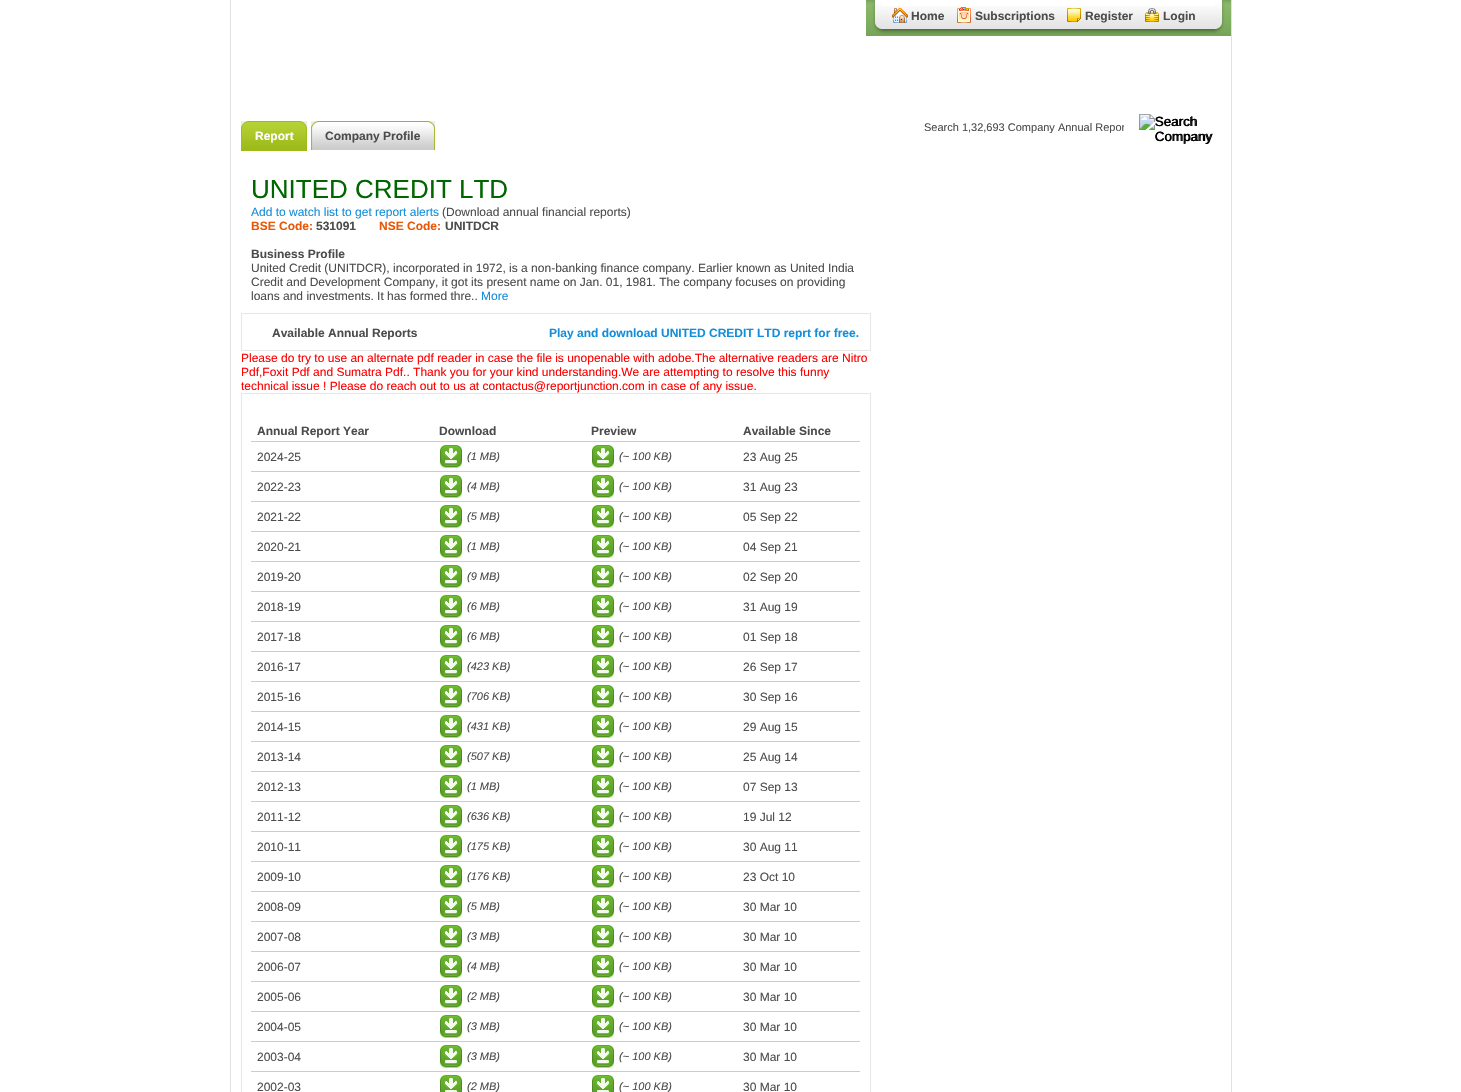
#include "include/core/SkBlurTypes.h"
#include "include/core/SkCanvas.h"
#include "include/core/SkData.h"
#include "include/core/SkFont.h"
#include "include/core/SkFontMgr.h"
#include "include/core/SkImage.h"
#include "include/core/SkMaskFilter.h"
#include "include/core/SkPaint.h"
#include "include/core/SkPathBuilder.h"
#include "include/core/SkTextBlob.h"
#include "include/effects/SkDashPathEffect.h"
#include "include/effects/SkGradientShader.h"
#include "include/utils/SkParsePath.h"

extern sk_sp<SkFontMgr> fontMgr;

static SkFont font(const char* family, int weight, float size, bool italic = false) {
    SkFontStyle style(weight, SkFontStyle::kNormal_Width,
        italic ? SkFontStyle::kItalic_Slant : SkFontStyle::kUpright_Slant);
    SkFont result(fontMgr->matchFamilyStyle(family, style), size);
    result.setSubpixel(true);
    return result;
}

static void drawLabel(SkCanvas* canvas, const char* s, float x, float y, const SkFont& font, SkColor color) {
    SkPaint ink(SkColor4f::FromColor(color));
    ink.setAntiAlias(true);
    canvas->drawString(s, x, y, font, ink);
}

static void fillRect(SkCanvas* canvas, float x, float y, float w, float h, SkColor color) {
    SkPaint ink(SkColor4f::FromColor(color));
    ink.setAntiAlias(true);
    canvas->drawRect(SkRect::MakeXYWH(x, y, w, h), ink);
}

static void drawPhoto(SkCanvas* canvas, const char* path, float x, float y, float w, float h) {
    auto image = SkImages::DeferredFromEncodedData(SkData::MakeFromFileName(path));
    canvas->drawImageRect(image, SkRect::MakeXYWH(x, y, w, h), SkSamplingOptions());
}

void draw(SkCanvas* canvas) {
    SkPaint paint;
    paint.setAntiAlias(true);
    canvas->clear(0xFFFFFFFF);
    fillRect(canvas, 1231, 0, 1, 1092, 0xFFE1E1DF);
    fillRect(canvas, 230, 0, 1, 1092, 0xFFE1E1DF);
    drawPhoto(canvas, "assets/img1.png", 866, 6, 365, 30);
    drawPhoto(canvas, "assets/img2.png", 866, 0, 16, 34);
    drawPhoto(canvas, "assets/img3.png", 1215, 0, 16, 34);
    drawPhoto(canvas, "assets/img4.png", 892, 8, 16, 15);
    SkFont font1 = font("Liberation Sans", 700, 12);
    drawLabel(canvas, "Home", 911, 20, font1, 0xFF4C4C4C);
    drawPhoto(canvas, "assets/img5.png", 957, 7, 14, 16);
    drawLabel(canvas, "Subscriptions", 975, 20, font1, 0xFF4C4C4C);
    drawPhoto(canvas, "assets/img6.png", 1067, 8, 14, 14);
    drawLabel(canvas, "Register", 1085, 20, font1, 0xFF4C4C4C);
    drawPhoto(canvas, "assets/img7.png", 1145, 8, 14, 14);
    drawLabel(canvas, "Login", 1163, 20, font1, 0xFF4C4C4C);
    drawPhoto(canvas, "assets/img8.png", 241, 121, 66, 30);
    drawPhoto(canvas, "assets/img9.png", 241, 121, 7, 20);
    drawLabel(canvas, "Report", 255, 140, font1, 0xFFFFFFFF);
    drawPhoto(canvas, "assets/img10.png", 318, 121, 117, 29);
    drawPhoto(canvas, "assets/img11.png", 311, 121, 7, 29);
    drawLabel(canvas, "Company Profile", 325, 140, font1, 0xFF4C4C4C);
    canvas->save();
    canvas->clipRect(SkRect::MakeXYWH(924, 121, 200, 12));
    SkFont font2 = font("Liberation Sans", 400, 11);
    drawLabel(canvas, "Search 1,32,693 Company Annual Repor", 924, 131, font2, 0xFF4C4C4C);
    canvas->restore();
    drawPhoto(canvas, "assets/img12.png", 1139, 114, 73, 30);
    SkFont font3 = font("Liberation Sans", 400, 13.5f);
    drawLabel(canvas, "Search", 1155, 126, font3, 0xFF000000);
    drawLabel(canvas, "Company", 1155, 141, font3, 0xFF000000);
    SkFont font4 = font("Liberation Sans", 400, 26);
    drawLabel(canvas, "UNITED CREDIT LTD", 251, 198, font4, 0xFF006600);
    SkFont font5 = font("Liberation Sans", 400, 12);
    drawLabel(canvas, "Add to watch list to get report alerts", 251, 216, font5, 0xFF148EDB);
    drawLabel(canvas, "(Download annual financial reports)", 442, 216, font5, 0xFF4C4C4C);
    drawLabel(canvas, "BSE Code:", 251, 230, font1, 0xFFE95808);
    drawLabel(canvas, "531091", 316, 230, font1, 0xFF4C4C4C);
    drawLabel(canvas, "NSE Code:", 379, 230, font1, 0xFFE95808);
    drawLabel(canvas, "UNITDCR", 445, 230, font1, 0xFF4C4C4C);
    drawLabel(canvas, "Business Profile", 251, 258, font1, 0xFF4C4C4C);
    drawLabel(canvas, "United Credit (UNITDCR), incorporated in 1972, is a non-banking finance company. Earlier known as United India", 251, 272, font5, 0xFF4C4C4C);
    drawLabel(canvas, "Credit and Development Company, it got its present name on Jan. 01, 1981. The company focuses on providing", 251, 286, font5, 0xFF4C4C4C);
    drawLabel(canvas, "loans and investments. It has formed thre..", 251, 300, font5, 0xFF4C4C4C);
    drawLabel(canvas, "More", 481, 300, font5, 0xFF148EDB);
    paint.setStroke(true);
    paint.setStrokeWidth(1);
    paint.setColor(0xFFE7E7E7);
    canvas->drawRect(SkRect::MakeXYWH(241.5f, 313.5f, 629, 37), paint);
    drawLabel(canvas, "Available Annual Reports", 272, 337, font1, 0xFF4C4C4C);
    drawLabel(canvas, "Play and download UNITED CREDIT LTD reprt for free.", 549, 337, font1, 0xFF148EDB);
    drawLabel(canvas, "Please do try to use an alternate pdf reader in case the file is unopenable with adobe.The alternative readers are Nitro", 241, 362, font5, 0xFFFF0000);
    drawLabel(canvas, "Pdf,Foxit Pdf and Sumatra Pdf.. Thank you for your kind understanding.We are attempting to resolve this funny", 241, 376, font5, 0xFFFF0000);
    drawLabel(canvas, "technical issue ! Please do reach out to us at contactus@reportjunction.com in case of any issue.", 241, 390, font5, 0xFFFF0000);
    canvas->drawRect(SkRect::MakeXYWH(241.5f, 393.5f, 629, 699), paint);
    drawLabel(canvas, "Annual Report Year", 257, 435, font1, 0xFF4C4C4C);
    drawLabel(canvas, "Download", 439, 435, font1, 0xFF4C4C4C);
    drawLabel(canvas, "Preview", 591, 435, font1, 0xFF4C4C4C);
    fillRect(canvas, 251, 441, 609, 1, 0xFFCCCCCC);
    drawLabel(canvas, "Available Since", 743, 435, font1, 0xFF4C4C4C);
    drawLabel(canvas, "2024-25", 257, 461, font5, 0xFF4C4C4C);
    drawPhoto(canvas, "assets/img13.png", 440, 445, 22, 23);
    SkFont font6 = font("Liberation Sans", 400, 11, true);
    drawLabel(canvas, "(1 MB)", 467, 460, font6, 0xFF4C4C4C);
    drawPhoto(canvas, "assets/img13.png", 592, 445, 22, 23);
    drawLabel(canvas, "(~ 100 KB)", 619, 460, font6, 0xFF4C4C4C);
    fillRect(canvas, 251, 471, 609, 1, 0xFFCCCCCC);
    drawLabel(canvas, "23 Aug 25", 743, 461, font5, 0xFF4C4C4C);
    drawLabel(canvas, "2022-23", 257, 491, font5, 0xFF4C4C4C);
    drawPhoto(canvas, "assets/img13.png", 440, 475, 22, 23);
    drawLabel(canvas, "(4 MB)", 467, 490, font6, 0xFF4C4C4C);
    drawPhoto(canvas, "assets/img13.png", 592, 475, 22, 23);
    drawLabel(canvas, "(~ 100 KB)", 619, 490, font6, 0xFF4C4C4C);
    fillRect(canvas, 251, 501, 609, 1, 0xFFCCCCCC);
    drawLabel(canvas, "31 Aug 23", 743, 491, font5, 0xFF4C4C4C);
    drawLabel(canvas, "2021-22", 257, 521, font5, 0xFF4C4C4C);
    drawPhoto(canvas, "assets/img13.png", 440, 505, 22, 23);
    drawLabel(canvas, "(5 MB)", 467, 520, font6, 0xFF4C4C4C);
    drawPhoto(canvas, "assets/img13.png", 592, 505, 22, 23);
    drawLabel(canvas, "(~ 100 KB)", 619, 520, font6, 0xFF4C4C4C);
    fillRect(canvas, 251, 531, 609, 1, 0xFFCCCCCC);
    drawLabel(canvas, "05 Sep 22", 743, 521, font5, 0xFF4C4C4C);
    drawLabel(canvas, "2020-21", 257, 551, font5, 0xFF4C4C4C);
    drawPhoto(canvas, "assets/img13.png", 440, 535, 22, 23);
    drawLabel(canvas, "(1 MB)", 467, 550, font6, 0xFF4C4C4C);
    drawPhoto(canvas, "assets/img13.png", 592, 535, 22, 23);
    drawLabel(canvas, "(~ 100 KB)", 619, 550, font6, 0xFF4C4C4C);
    fillRect(canvas, 251, 561, 609, 1, 0xFFCCCCCC);
    drawLabel(canvas, "04 Sep 21", 743, 551, font5, 0xFF4C4C4C);
    drawLabel(canvas, "2019-20", 257, 581, font5, 0xFF4C4C4C);
    drawPhoto(canvas, "assets/img13.png", 440, 565, 22, 23);
    drawLabel(canvas, "(9 MB)", 467, 580, font6, 0xFF4C4C4C);
    drawPhoto(canvas, "assets/img13.png", 592, 565, 22, 23);
    drawLabel(canvas, "(~ 100 KB)", 619, 580, font6, 0xFF4C4C4C);
    fillRect(canvas, 251, 591, 609, 1, 0xFFCCCCCC);
    drawLabel(canvas, "02 Sep 20", 743, 581, font5, 0xFF4C4C4C);
    drawLabel(canvas, "2018-19", 257, 611, font5, 0xFF4C4C4C);
    drawPhoto(canvas, "assets/img13.png", 440, 595, 22, 23);
    drawLabel(canvas, "(6 MB)", 467, 610, font6, 0xFF4C4C4C);
    drawPhoto(canvas, "assets/img13.png", 592, 595, 22, 23);
    drawLabel(canvas, "(~ 100 KB)", 619, 610, font6, 0xFF4C4C4C);
    fillRect(canvas, 251, 621, 609, 1, 0xFFCCCCCC);
    drawLabel(canvas, "31 Aug 19", 743, 611, font5, 0xFF4C4C4C);
    drawLabel(canvas, "2017-18", 257, 641, font5, 0xFF4C4C4C);
    drawPhoto(canvas, "assets/img13.png", 440, 625, 22, 23);
    drawLabel(canvas, "(6 MB)", 467, 640, font6, 0xFF4C4C4C);
    drawPhoto(canvas, "assets/img13.png", 592, 625, 22, 23);
    drawLabel(canvas, "(~ 100 KB)", 619, 640, font6, 0xFF4C4C4C);
    fillRect(canvas, 251, 651, 609, 1, 0xFFCCCCCC);
    drawLabel(canvas, "01 Sep 18", 743, 641, font5, 0xFF4C4C4C);
    drawLabel(canvas, "2016-17", 257, 671, font5, 0xFF4C4C4C);
    drawPhoto(canvas, "assets/img13.png", 440, 655, 22, 23);
    drawLabel(canvas, "(423 KB)", 467, 670, font6, 0xFF4C4C4C);
    drawPhoto(canvas, "assets/img13.png", 592, 655, 22, 23);
    drawLabel(canvas, "(~ 100 KB)", 619, 670, font6, 0xFF4C4C4C);
    fillRect(canvas, 251, 681, 609, 1, 0xFFCCCCCC);
    drawLabel(canvas, "26 Sep 17", 743, 671, font5, 0xFF4C4C4C);
    drawLabel(canvas, "2015-16", 257, 701, font5, 0xFF4C4C4C);
    drawPhoto(canvas, "assets/img13.png", 440, 685, 22, 23);
    drawLabel(canvas, "(706 KB)", 467, 700, font6, 0xFF4C4C4C);
    drawPhoto(canvas, "assets/img13.png", 592, 685, 22, 23);
    drawLabel(canvas, "(~ 100 KB)", 619, 700, font6, 0xFF4C4C4C);
    fillRect(canvas, 251, 711, 609, 1, 0xFFCCCCCC);
    drawLabel(canvas, "30 Sep 16", 743, 701, font5, 0xFF4C4C4C);
    drawLabel(canvas, "2014-15", 257, 731, font5, 0xFF4C4C4C);
    drawPhoto(canvas, "assets/img13.png", 440, 715, 22, 23);
    drawLabel(canvas, "(431 KB)", 467, 730, font6, 0xFF4C4C4C);
    drawPhoto(canvas, "assets/img13.png", 592, 715, 22, 23);
    drawLabel(canvas, "(~ 100 KB)", 619, 730, font6, 0xFF4C4C4C);
    fillRect(canvas, 251, 741, 609, 1, 0xFFCCCCCC);
    drawLabel(canvas, "29 Aug 15", 743, 731, font5, 0xFF4C4C4C);
    drawLabel(canvas, "2013-14", 257, 761, font5, 0xFF4C4C4C);
    drawPhoto(canvas, "assets/img13.png", 440, 745, 22, 23);
    drawLabel(canvas, "(507 KB)", 467, 760, font6, 0xFF4C4C4C);
    drawPhoto(canvas, "assets/img13.png", 592, 745, 22, 23);
    drawLabel(canvas, "(~ 100 KB)", 619, 760, font6, 0xFF4C4C4C);
    fillRect(canvas, 251, 771, 609, 1, 0xFFCCCCCC);
    drawLabel(canvas, "25 Aug 14", 743, 761, font5, 0xFF4C4C4C);
    drawLabel(canvas, "2012-13", 257, 791, font5, 0xFF4C4C4C);
    drawPhoto(canvas, "assets/img13.png", 440, 775, 22, 23);
    drawLabel(canvas, "(1 MB)", 467, 790, font6, 0xFF4C4C4C);
    drawPhoto(canvas, "assets/img13.png", 592, 775, 22, 23);
    drawLabel(canvas, "(~ 100 KB)", 619, 790, font6, 0xFF4C4C4C);
    fillRect(canvas, 251, 801, 609, 1, 0xFFCCCCCC);
    drawLabel(canvas, "07 Sep 13", 743, 791, font5, 0xFF4C4C4C);
    drawLabel(canvas, "2011-12", 257, 821, font5, 0xFF4C4C4C);
    drawPhoto(canvas, "assets/img13.png", 440, 805, 22, 23);
    drawLabel(canvas, "(636 KB)", 467, 820, font6, 0xFF4C4C4C);
    drawPhoto(canvas, "assets/img13.png", 592, 805, 22, 23);
    drawLabel(canvas, "(~ 100 KB)", 619, 820, font6, 0xFF4C4C4C);
    fillRect(canvas, 251, 831, 609, 1, 0xFFCCCCCC);
    drawLabel(canvas, "19 Jul 12", 743, 821, font5, 0xFF4C4C4C);
    drawLabel(canvas, "2010-11", 257, 851, font5, 0xFF4C4C4C);
    drawPhoto(canvas, "assets/img13.png", 440, 835, 22, 23);
    drawLabel(canvas, "(175 KB)", 467, 850, font6, 0xFF4C4C4C);
    drawPhoto(canvas, "assets/img13.png", 592, 835, 22, 23);
    drawLabel(canvas, "(~ 100 KB)", 619, 850, font6, 0xFF4C4C4C);
    fillRect(canvas, 251, 861, 609, 1, 0xFFCCCCCC);
    drawLabel(canvas, "30 Aug 11", 743, 851, font5, 0xFF4C4C4C);
    drawLabel(canvas, "2009-10", 257, 881, font5, 0xFF4C4C4C);
    drawPhoto(canvas, "assets/img13.png", 440, 865, 22, 23);
    drawLabel(canvas, "(176 KB)", 467, 880, font6, 0xFF4C4C4C);
    drawPhoto(canvas, "assets/img13.png", 592, 865, 22, 23);
    drawLabel(canvas, "(~ 100 KB)", 619, 880, font6, 0xFF4C4C4C);
    fillRect(canvas, 251, 891, 609, 1, 0xFFCCCCCC);
    drawLabel(canvas, "23 Oct 10", 743, 881, font5, 0xFF4C4C4C);
    drawLabel(canvas, "2008-09", 257, 911, font5, 0xFF4C4C4C);
    drawPhoto(canvas, "assets/img13.png", 440, 895, 22, 23);
    drawLabel(canvas, "(5 MB)", 467, 910, font6, 0xFF4C4C4C);
    drawPhoto(canvas, "assets/img13.png", 592, 895, 22, 23);
    drawLabel(canvas, "(~ 100 KB)", 619, 910, font6, 0xFF4C4C4C);
    fillRect(canvas, 251, 921, 609, 1, 0xFFCCCCCC);
    drawLabel(canvas, "30 Mar 10", 743, 911, font5, 0xFF4C4C4C);
    drawLabel(canvas, "2007-08", 257, 941, font5, 0xFF4C4C4C);
    drawPhoto(canvas, "assets/img13.png", 440, 925, 22, 23);
    drawLabel(canvas, "(3 MB)", 467, 940, font6, 0xFF4C4C4C);
    drawPhoto(canvas, "assets/img13.png", 592, 925, 22, 23);
    drawLabel(canvas, "(~ 100 KB)", 619, 940, font6, 0xFF4C4C4C);
    fillRect(canvas, 251, 951, 609, 1, 0xFFCCCCCC);
    drawLabel(canvas, "30 Mar 10", 743, 941, font5, 0xFF4C4C4C);
    drawLabel(canvas, "2006-07", 257, 971, font5, 0xFF4C4C4C);
    drawPhoto(canvas, "assets/img13.png", 440, 955, 22, 23);
    drawLabel(canvas, "(4 MB)", 467, 970, font6, 0xFF4C4C4C);
    drawPhoto(canvas, "assets/img13.png", 592, 955, 22, 23);
    drawLabel(canvas, "(~ 100 KB)", 619, 970, font6, 0xFF4C4C4C);
    fillRect(canvas, 251, 981, 609, 1, 0xFFCCCCCC);
    drawLabel(canvas, "30 Mar 10", 743, 971, font5, 0xFF4C4C4C);
    drawLabel(canvas, "2005-06", 257, 1001, font5, 0xFF4C4C4C);
    drawPhoto(canvas, "assets/img13.png", 440, 985, 22, 23);
    drawLabel(canvas, "(2 MB)", 467, 1000, font6, 0xFF4C4C4C);
    drawPhoto(canvas, "assets/img13.png", 592, 985, 22, 23);
    drawLabel(canvas, "(~ 100 KB)", 619, 1000, font6, 0xFF4C4C4C);
    fillRect(canvas, 251, 1011, 609, 1, 0xFFCCCCCC);
    drawLabel(canvas, "30 Mar 10", 743, 1001, font5, 0xFF4C4C4C);
    drawLabel(canvas, "2004-05", 257, 1031, font5, 0xFF4C4C4C);
    drawPhoto(canvas, "assets/img13.png", 440, 1015, 22, 23);
    drawLabel(canvas, "(3 MB)", 467, 1030, font6, 0xFF4C4C4C);
    drawPhoto(canvas, "assets/img13.png", 592, 1015, 22, 23);
    drawLabel(canvas, "(~ 100 KB)", 619, 1030, font6, 0xFF4C4C4C);
    fillRect(canvas, 251, 1041, 609, 1, 0xFFCCCCCC);
    drawLabel(canvas, "30 Mar 10", 743, 1031, font5, 0xFF4C4C4C);
    drawLabel(canvas, "2003-04", 257, 1061, font5, 0xFF4C4C4C);
    drawPhoto(canvas, "assets/img13.png", 440, 1045, 22, 23);
    drawLabel(canvas, "(3 MB)", 467, 1060, font6, 0xFF4C4C4C);
    drawPhoto(canvas, "assets/img13.png", 592, 1045, 22, 23);
    drawLabel(canvas, "(~ 100 KB)", 619, 1060, font6, 0xFF4C4C4C);
    fillRect(canvas, 251, 1071, 609, 1, 0xFFCCCCCC);
    drawLabel(canvas, "30 Mar 10", 743, 1061, font5, 0xFF4C4C4C);
    drawLabel(canvas, "2002-03", 257, 1091, font5, 0xFF4C4C4C);
    drawPhoto(canvas, "assets/img14.png", 440, 1075, 22, 17);
    drawLabel(canvas, "(2 MB)", 467, 1090, font6, 0xFF4C4C4C);
    drawPhoto(canvas, "assets/img14.png", 592, 1075, 22, 17);
    drawLabel(canvas, "(~ 100 KB)", 619, 1090, font6, 0xFF4C4C4C);
    drawLabel(canvas, "30 Mar 10", 743, 1091, font5, 0xFF4C4C4C);
}
